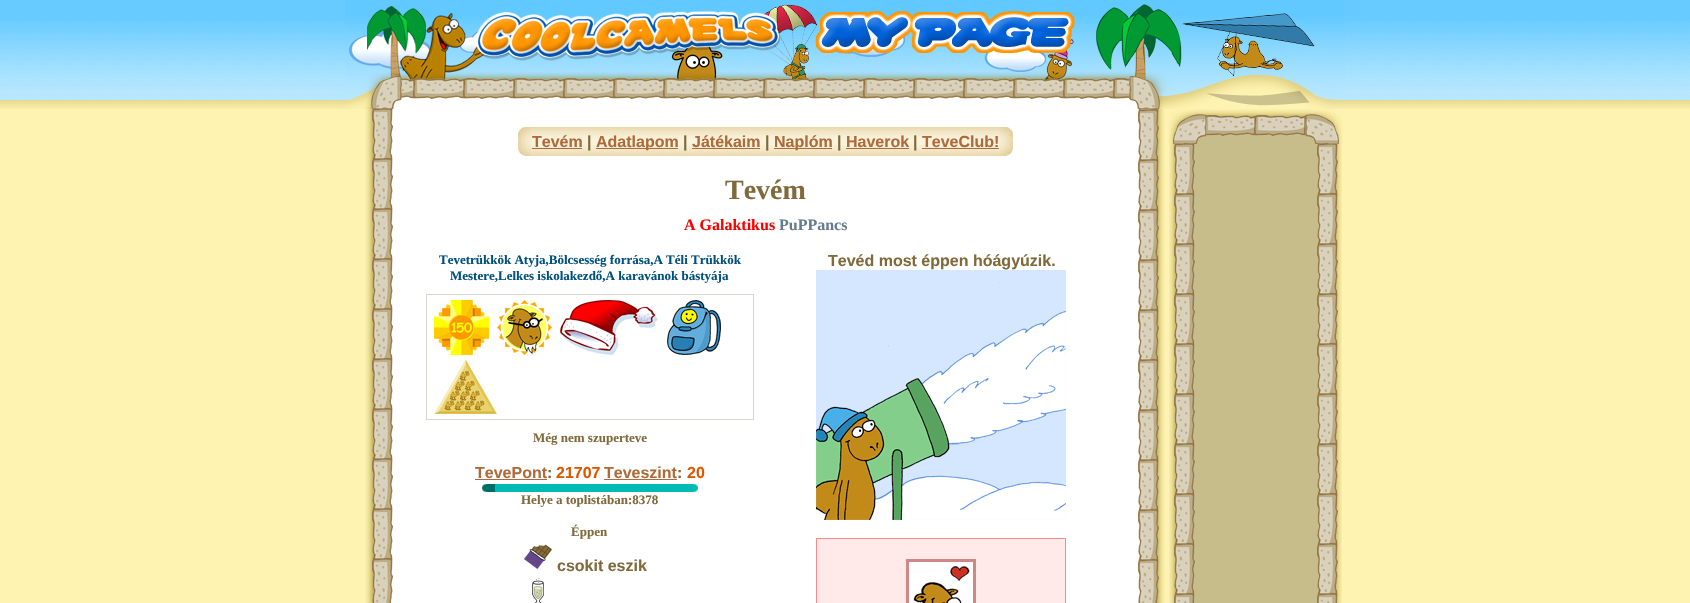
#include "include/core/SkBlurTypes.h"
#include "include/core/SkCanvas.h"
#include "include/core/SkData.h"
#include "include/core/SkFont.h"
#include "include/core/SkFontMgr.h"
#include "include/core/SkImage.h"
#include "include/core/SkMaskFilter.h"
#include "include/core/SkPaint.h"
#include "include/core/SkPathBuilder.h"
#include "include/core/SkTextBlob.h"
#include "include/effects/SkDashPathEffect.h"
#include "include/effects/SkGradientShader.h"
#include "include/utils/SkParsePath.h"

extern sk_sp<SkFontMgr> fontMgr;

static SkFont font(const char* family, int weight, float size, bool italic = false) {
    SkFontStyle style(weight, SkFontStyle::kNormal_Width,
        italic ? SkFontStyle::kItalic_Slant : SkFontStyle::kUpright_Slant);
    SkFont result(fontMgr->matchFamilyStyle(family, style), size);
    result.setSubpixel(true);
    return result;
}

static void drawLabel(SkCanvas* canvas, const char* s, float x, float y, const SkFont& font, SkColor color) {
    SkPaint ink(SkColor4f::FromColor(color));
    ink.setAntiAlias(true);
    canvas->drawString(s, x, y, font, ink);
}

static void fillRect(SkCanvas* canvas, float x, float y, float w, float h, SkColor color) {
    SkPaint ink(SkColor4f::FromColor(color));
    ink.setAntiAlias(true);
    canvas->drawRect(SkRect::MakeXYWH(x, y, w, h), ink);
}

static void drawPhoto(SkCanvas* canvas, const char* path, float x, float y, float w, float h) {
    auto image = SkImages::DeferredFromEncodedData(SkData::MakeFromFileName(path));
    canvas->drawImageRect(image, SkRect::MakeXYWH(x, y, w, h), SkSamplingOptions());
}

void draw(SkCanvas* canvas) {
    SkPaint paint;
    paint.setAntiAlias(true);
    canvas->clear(0xFFFFF3B1);
    drawPhoto(canvas, "assets/img1.png", 0, 0, 1690, 109);
    drawPhoto(canvas, "assets/img2.png", 345, 0, 1000, 109);
    drawPhoto(canvas, "assets/img3.png", 365, 109, 29, 494);
    fillRect(canvas, 394, 109, 743, 494, 0xFFFFFFFF);
    drawPhoto(canvas, "assets/img4.png", 518, 127, 14, 29);
    drawPhoto(canvas, "assets/img5.png", 532, 127, 467, 29);
    SkFont font1 = font("Liberation Sans", 700, 16);
    drawLabel(canvas, "Tevém", 532, 147, font1, 0xFFB0693A);
    fillRect(canvas, 532, 148, 50, 1, 0xFFB0693A);
    drawLabel(canvas, "|", 587, 147, font1, 0xFF80693A);
    fillRect(canvas, 596, 148, 82, 1, 0xFFB0693A);
    drawLabel(canvas, "Adatlapom", 596, 147, font1, 0xFFB0693A);
    drawLabel(canvas, "|", 683, 147, font1, 0xFF80693A);
    drawLabel(canvas, "Játékaim", 692, 147, font1, 0xFFB0693A);
    fillRect(canvas, 692, 148, 68, 1, 0xFFB0693A);
    drawLabel(canvas, "|", 765, 147, font1, 0xFF80693A);
    fillRect(canvas, 774, 148, 58, 1, 0xFFB0693A);
    drawLabel(canvas, "Naplóm", 774, 147, font1, 0xFFB0693A);
    drawLabel(canvas, "|", 837, 147, font1, 0xFF80693A);
    drawLabel(canvas, "Haverok", 846, 147, font1, 0xFFB0693A);
    fillRect(canvas, 846, 148, 63, 1, 0xFFB0693A);
    drawLabel(canvas, "|", 913, 147, font1, 0xFF80693A);
    drawLabel(canvas, "TeveClub!", 922, 147, font1, 0xFFB0693A);
    fillRect(canvas, 922, 148, 77, 1, 0xFFB0693A);
    drawPhoto(canvas, "assets/img6.png", 999, 127, 14, 29);
    SkFont font2 = font("Liberation Serif", 700, 28);
    drawLabel(canvas, "Tevém", 725, 199, font2, 0xFF80693A);
    SkFont font3 = font("Liberation Serif", 700, 16);
    drawLabel(canvas, "A Galaktikus", 684, 230, font3, 0xFFFF0000);
    drawLabel(canvas, "PuPPancs", 779, 230, font3, 0xFF657C8E);
    SkFont font4 = font("Liberation Serif", 700, 13);
    drawLabel(canvas, "Tevetrükkök Atyja,Bölcsesség forrása,A Téli Trükkök", 439, 264, font4, 0xFF005080);
    drawLabel(canvas, "Mestere,Lelkes iskolakezdő,A karavánok bástyája", 450, 280, font4, 0xFF005080);
    paint.setStroke(true);
    paint.setStrokeWidth(1);
    paint.setColor(0xFFD9D6CC);
    canvas->drawRect(SkRect::MakeXYWH(426.5f, 294.5f, 327, 125), paint);
    drawPhoto(canvas, "assets/img7.png", 434, 300, 55, 55);
    drawPhoto(canvas, "assets/img8.png", 497, 300, 55, 55);
    drawPhoto(canvas, "assets/img9.png", 560, 300, 98, 55);
    drawPhoto(canvas, "assets/img10.png", 667, 300, 54, 55);
    drawPhoto(canvas, "assets/img11.png", 434, 359, 63, 55);
    drawLabel(canvas, "Még nem szuperteve", 533, 442, font4, 0xFF80693A);
    drawLabel(canvas, "TevePont", 475, 478, font1, 0xFFB0693A);
    fillRect(canvas, 475, 479, 72, 1, 0xFFB0693A);
    drawLabel(canvas, ":", 547, 478, font1, 0xFF80693A);
    drawLabel(canvas, "21707", 556, 478, font1, 0xFFDE5500);
    drawLabel(canvas, "Teveszint", 604, 478, font1, 0xFFB0693A);
    fillRect(canvas, 604, 479, 73, 1, 0xFFB0693A);
    drawLabel(canvas, ":", 677, 478, font1, 0xFF80693A);
    drawLabel(canvas, "20", 687, 478, font1, 0xFFDE5500);
    drawPhoto(canvas, "assets/img12.png", 482, 484, 5, 8);
    fillRect(canvas, 487, 484, 8, 8, 0xFF006D69);
    fillRect(canvas, 495, 484, 198, 8, 0xFF00BBB4);
    drawPhoto(canvas, "assets/img13.png", 693, 484, 5, 8);
    drawLabel(canvas, "Helye a toplistában:8378", 521, 504, font4, 0xFF80693A);
    drawLabel(canvas, "Éppen", 571, 536, font4, 0xFF80693A);
    drawPhoto(canvas, "assets/img14.png", 524, 544, 28, 25);
    drawLabel(canvas, "csokit eszik", 557, 571, font1, 0xFF80693A);
    drawPhoto(canvas, "assets/img15.png", 532, 578, 12, 25);
    drawLabel(canvas, "Tevéd most éppen hóágyúzik.", 828, 266, font1, 0xFF80693A);
    drawPhoto(canvas, "assets/img16.png", 816, 270, 250, 250);
    paint.setStroke(false);
    paint.setColor(0xFFFFE9E9);
    canvas->drawRect(SkRect::MakeXYWH(816.5f, 538.5f, 249, 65), paint);
    paint.setStroke(true);
    paint.setColor(0xFFFF8888);
    canvas->drawRect(SkRect::MakeXYWH(816.5f, 538.5f, 249, 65), paint);
    drawPhoto(canvas, "assets/img17.png", 906, 559, 70, 44);
    drawPhoto(canvas, "assets/img18.png", 1137, 109, 28, 494);
    drawPhoto(canvas, "assets/img19.png", 1168, 109, 175, 35);
    drawPhoto(canvas, "assets/img20.png", 1169, 144, 173, 459);
}
